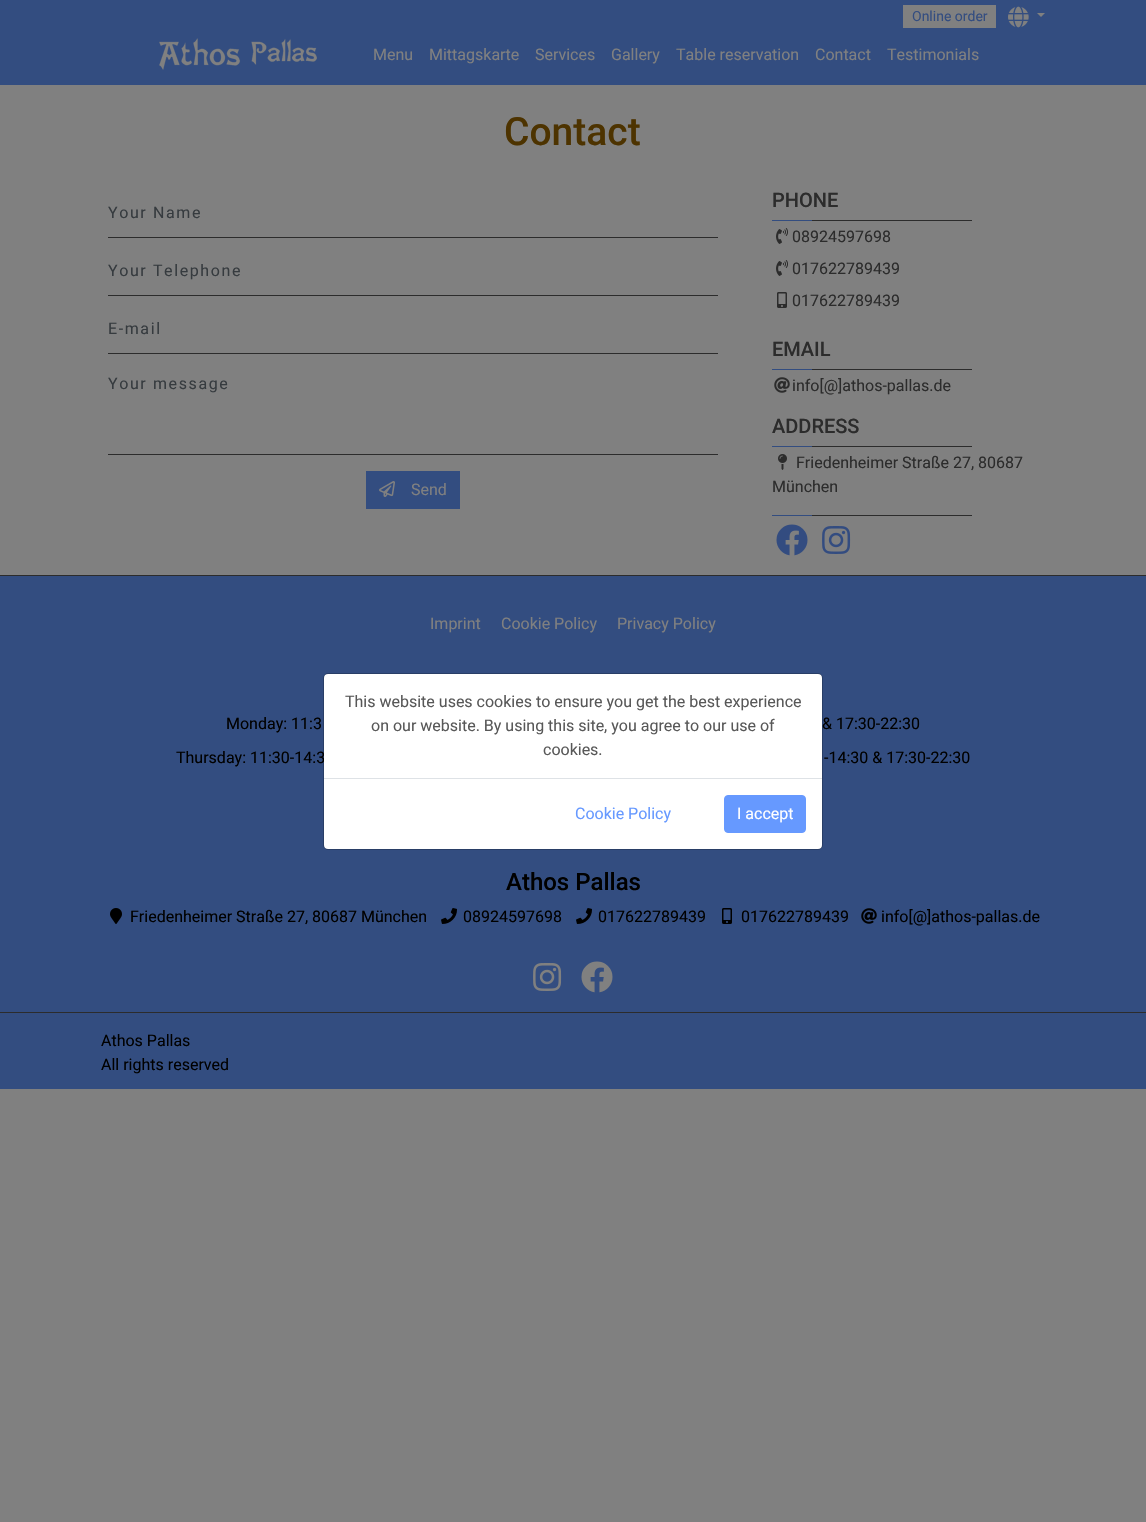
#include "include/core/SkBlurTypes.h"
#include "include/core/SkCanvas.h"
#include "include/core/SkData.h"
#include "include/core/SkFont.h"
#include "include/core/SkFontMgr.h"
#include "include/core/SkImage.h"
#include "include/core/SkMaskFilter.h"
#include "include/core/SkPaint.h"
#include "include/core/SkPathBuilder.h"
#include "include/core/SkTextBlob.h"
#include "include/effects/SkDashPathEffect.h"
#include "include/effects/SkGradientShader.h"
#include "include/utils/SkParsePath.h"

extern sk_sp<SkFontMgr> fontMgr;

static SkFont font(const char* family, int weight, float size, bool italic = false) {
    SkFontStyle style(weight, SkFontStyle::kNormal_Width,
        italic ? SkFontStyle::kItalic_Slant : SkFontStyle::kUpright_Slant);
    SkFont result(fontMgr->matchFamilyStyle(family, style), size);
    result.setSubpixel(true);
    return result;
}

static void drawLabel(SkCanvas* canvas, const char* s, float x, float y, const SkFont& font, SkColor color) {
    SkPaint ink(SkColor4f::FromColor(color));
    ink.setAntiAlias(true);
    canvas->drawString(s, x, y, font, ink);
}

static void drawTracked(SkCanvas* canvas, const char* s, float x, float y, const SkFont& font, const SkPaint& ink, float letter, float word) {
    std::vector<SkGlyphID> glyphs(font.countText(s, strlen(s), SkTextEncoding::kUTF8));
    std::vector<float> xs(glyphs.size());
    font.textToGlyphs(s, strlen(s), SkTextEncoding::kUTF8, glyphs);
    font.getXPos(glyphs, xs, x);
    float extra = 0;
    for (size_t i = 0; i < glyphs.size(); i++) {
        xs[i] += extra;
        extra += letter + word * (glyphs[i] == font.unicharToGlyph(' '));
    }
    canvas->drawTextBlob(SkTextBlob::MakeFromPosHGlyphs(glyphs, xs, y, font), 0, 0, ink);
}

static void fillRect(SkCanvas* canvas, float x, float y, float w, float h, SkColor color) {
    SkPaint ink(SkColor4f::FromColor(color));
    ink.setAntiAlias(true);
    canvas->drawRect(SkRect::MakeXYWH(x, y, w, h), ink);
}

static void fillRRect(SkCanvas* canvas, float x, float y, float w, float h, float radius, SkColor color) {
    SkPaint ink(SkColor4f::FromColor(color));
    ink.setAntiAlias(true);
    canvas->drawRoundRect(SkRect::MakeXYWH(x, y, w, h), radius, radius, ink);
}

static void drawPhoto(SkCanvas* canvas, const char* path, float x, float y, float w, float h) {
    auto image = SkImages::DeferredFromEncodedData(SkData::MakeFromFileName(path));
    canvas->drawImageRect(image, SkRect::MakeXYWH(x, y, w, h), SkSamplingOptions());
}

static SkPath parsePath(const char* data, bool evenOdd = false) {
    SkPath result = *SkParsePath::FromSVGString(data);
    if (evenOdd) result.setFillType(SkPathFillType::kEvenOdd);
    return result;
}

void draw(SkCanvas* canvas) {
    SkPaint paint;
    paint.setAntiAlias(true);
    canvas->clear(0xFF808080);
    fillRect(canvas, 0, 0, 1146, 85, 0xFF334D80);
    fillRect(canvas, 903, 5, 93, 23, 0xFF808080);
    SkFont font1 = font("Roboto", 400, 14);
    drawLabel(canvas, "Online order", 912, 21, font1, 0xFF334D80);
    drawPhoto(canvas, "assets/img1.png", 1008, 6, 21, 22);
    paint.setColor(0xFF808080);
    canvas->drawPath(parsePath("M1037 13H1045L1041 17Z"), paint);
    drawPhoto(canvas, "assets/img2.png", 159, 38, 158, 32);
    SkFont font2 = font("Roboto", 400, 16);
    drawLabel(canvas, "Menu", 373, 60, font2, 0xFF808080);
    drawLabel(canvas, "Mittagskarte", 429, 60, font2, 0xFF808080);
    drawLabel(canvas, "Services", 535, 60, font2, 0xFF808080);
    drawLabel(canvas, "Gallery", 611, 60, font2, 0xFF808080);
    drawLabel(canvas, "Table reservation", 676, 60, font2, 0xFF808080);
    drawLabel(canvas, "Contact", 815, 60, font2, 0xFF808080);
    drawLabel(canvas, "Testimonials", 887, 60, font2, 0xFF808080);
    SkFont font3 = font("Roboto", 500, 39);
    drawLabel(canvas, "Contact", 504, 145, font3, 0xFF4D3300);
    fillRect(canvas, 108, 237, 610, 1, 0xFF2C2C2C);
    paint.setColor(0xFF363B3F);
    drawTracked(canvas, "Your Name", 108, 218, font2, paint, 1.6f, 0);
    fillRect(canvas, 108, 295, 610, 1, 0xFF2C2C2C);
    drawTracked(canvas, "Your Telephone", 108, 276, font2, paint, 1.6f, 0);
    fillRect(canvas, 108, 353, 610, 1, 0xFF2C2C2C);
    drawTracked(canvas, "E-mail", 108, 334, font2, paint, 1.6f, 0);
    fillRect(canvas, 108, 454, 610, 1, 0xFF2C2C2C);
    drawTracked(canvas, "Your message", 108, 389, font2, paint, 1.6f, 0);
    fillRect(canvas, 366, 471, 94, 38, 0xFF334D80);
    drawPhoto(canvas, "assets/img3.png", 379, 481, 16, 16);
    drawLabel(canvas, "Send", 411, 495, font2, 0xFF808080);
    SkFont font4 = font("Roboto", 500, 20);
    drawLabel(canvas, "PHONE", 772, 207, font4, 0xFF2C2C2C);
    fillRect(canvas, 812, 220, 160, 1, 0xFF2C2C2C);
    fillRect(canvas, 772, 220, 40, 1, 0xFF334D80);
    drawPhoto(canvas, "assets/img4.png", 776, 228, 12, 16);
    drawLabel(canvas, "08924597698", 792, 242, font2, 0xFF2C2C2C);
    drawPhoto(canvas, "assets/img4.png", 776, 260, 12, 16);
    drawLabel(canvas, "017622789439", 792, 274, font2, 0xFF2C2C2C);
    drawPhoto(canvas, "assets/img5.png", 777, 292, 10, 16);
    drawLabel(canvas, "017622789439", 792, 306, font2, 0xFF2C2C2C);
    drawLabel(canvas, "EMAIL", 772, 356, font4, 0xFF2C2C2C);
    fillRect(canvas, 812, 369, 160, 1, 0xFF2C2C2C);
    fillRect(canvas, 772, 369, 40, 1, 0xFF334D80);
    drawPhoto(canvas, "assets/img6.png", 774, 377, 16, 16);
    drawLabel(canvas, "info[@]athos-pallas.de", 792, 391, font2, 0xFF2C2C2C);
    drawLabel(canvas, "ADDRESS", 772, 433, font4, 0xFF2C2C2C);
    fillRect(canvas, 812, 446, 160, 1, 0xFF2C2C2C);
    fillRect(canvas, 772, 446, 40, 1, 0xFF334D80);
    drawPhoto(canvas, "assets/img7.png", 778, 454, 9, 16);
    drawLabel(canvas, "Friedenheimer Straße 27, 80687", 796, 468, font2, 0xFF2C2C2C);
    drawLabel(canvas, "München", 772, 492, font2, 0xFF2C2C2C);
    fillRect(canvas, 812, 515, 160, 1, 0xFF2C2C2C);
    fillRect(canvas, 772, 515, 40, 1, 0xFF334D80);
    drawPhoto(canvas, "assets/img8.png", 776, 524, 32, 32);
    drawPhoto(canvas, "assets/img9.png", 822, 526, 29, 28);
    fillRect(canvas, 0, 575, 1146, 1, 0xFF2C2C2C);
    fillRect(canvas, 0, 576, 1146, 436, 0xFF334D80);
    fillRect(canvas, 0, 1012, 1146, 1, 0xFF2C2C2C);
    drawLabel(canvas, "Imprint", 430, 629, font2, 0xFF808080);
    drawLabel(canvas, "Cookie Policy", 501, 629, font2, 0xFF808080);
    drawLabel(canvas, "Privacy Policy", 617, 629, font2, 0xFF808080);
    drawLabel(canvas, "Monday: 11:3", 226, 729, font2, 0xFF000000);
    drawLabel(canvas, "& 17:30-22:30", 822, 729, font2, 0xFF000000);
    drawLabel(canvas, "Thursday: 11:30-14:3", 176, 763, font2, 0xFF000000);
    drawLabel(canvas, "-14:30 & 17:30-22:30", 824, 763, font2, 0xFF000000);
    SkFont font5 = font("Roboto", 500, 24);
    drawLabel(canvas, "Athos Pallas", 506, 890, font5, 0xFF000000);
    drawPhoto(canvas, "assets/img10.png", 110, 908, 12, 16);
    drawLabel(canvas, "Friedenheimer Straße 27, 80687 München", 130, 922, font2, 0xFF000000);
    drawPhoto(canvas, "assets/img11.png", 441, 908, 16, 16);
    drawLabel(canvas, "08924597698", 463, 922, font2, 0xFF000000);
    drawPhoto(canvas, "assets/img11.png", 576, 908, 16, 16);
    drawLabel(canvas, "017622789439", 598, 922, font2, 0xFF000000);
    drawPhoto(canvas, "assets/img12.png", 722, 908, 10, 16);
    drawLabel(canvas, "017622789439", 741, 922, font2, 0xFF000000);
    drawPhoto(canvas, "assets/img13.png", 861, 908, 16, 16);
    drawLabel(canvas, "info[@]athos-pallas.de", 881, 922, font2, 0xFF000000);
    drawPhoto(canvas, "assets/img14.png", 533, 963, 29, 28);
    drawPhoto(canvas, "assets/img15.png", 581, 961, 32, 32);
    fillRRect(canvas, 324, 674, 498, 175, 4, 0xFFFFFFFF);
    paint.setStroke(true);
    paint.setStrokeWidth(1);
    paint.setColor(0x33000000);
    canvas->drawRoundRect(SkRect::MakeXYWH(323.5f, 673.5f, 499, 176), 4.5f, 4.5f, paint);
    drawLabel(canvas, "This website uses cookies to ensure you get the best experience", 345, 707, font2, 0xFF585858);
    drawLabel(canvas, "on our website. By using this site, you agree to our use of", 371, 731, font2, 0xFF585858);
    drawLabel(canvas, "cookies.", 543, 755, font2, 0xFF585858);
    fillRect(canvas, 324, 778, 498, 1, 0xFFDEE2E6);
    drawLabel(canvas, "Cookie Policy", 575, 819, font2, 0xFF6699FF);
    paint.setStroke(false);
    paint.setColor(0xFF6699FF);
    canvas->drawRoundRect(SkRect::MakeXYWH(724.5f, 795.5f, 81, 37), 3.5f, 3.5f, paint);
    paint.setStroke(true);
    canvas->drawRoundRect(SkRect::MakeXYWH(724.5f, 795.5f, 81, 37), 3.5f, 3.5f, paint);
    drawLabel(canvas, "I accept", 737, 819, font2, 0xFFFFFFFF);
    fillRect(canvas, 0, 1013, 1146, 76, 0xFF334D80);
    drawLabel(canvas, "Athos Pallas", 101, 1046, font2, 0xFF000000);
    drawLabel(canvas, "All rights reserved", 101, 1070, font2, 0xFF000000);
}
